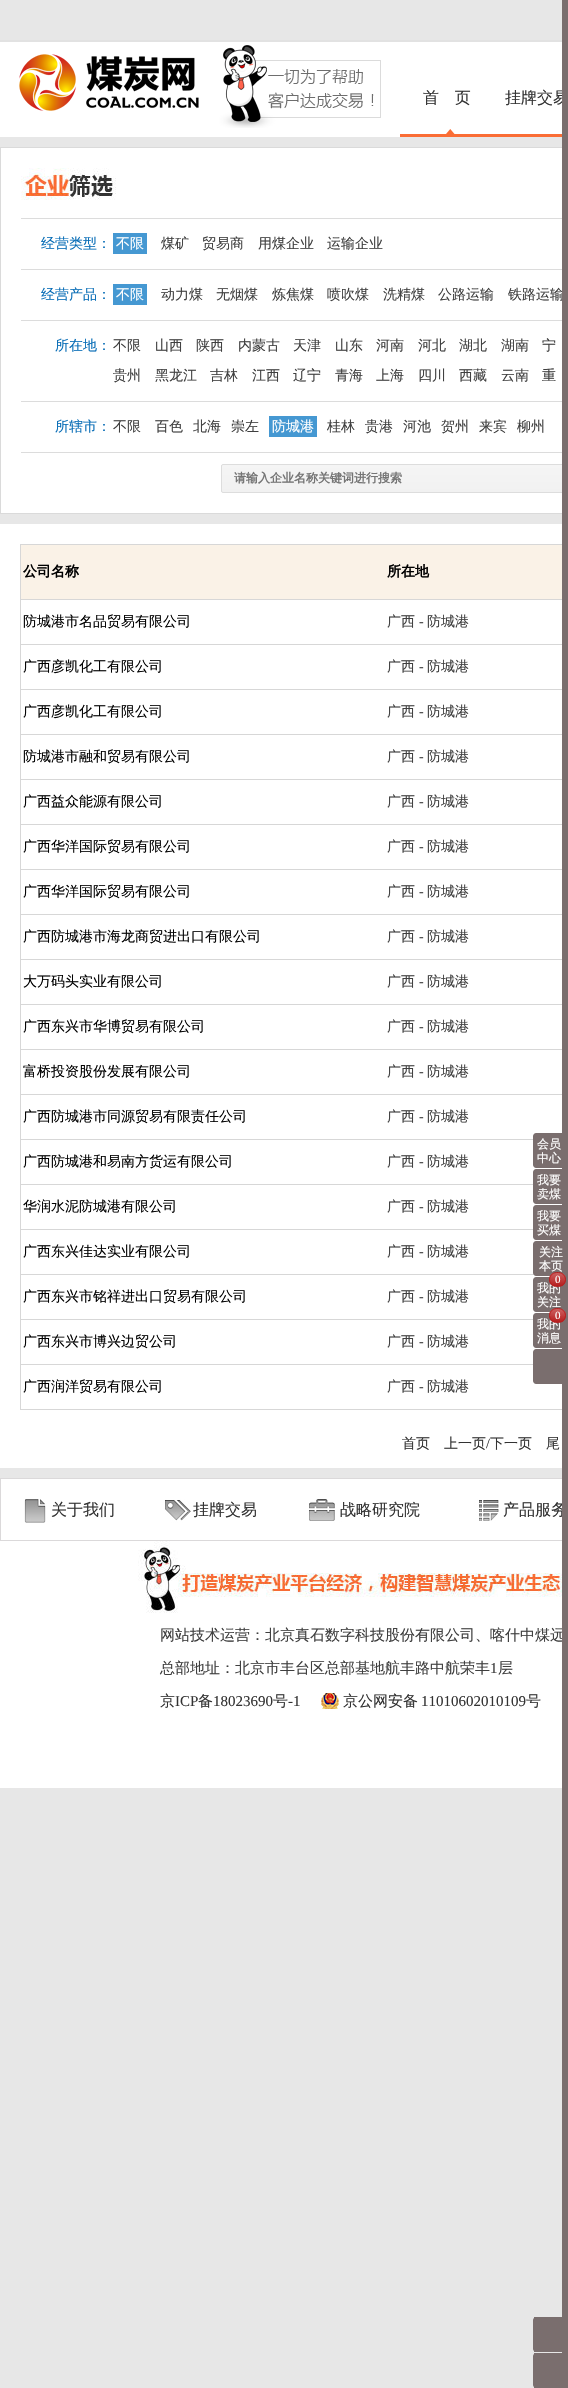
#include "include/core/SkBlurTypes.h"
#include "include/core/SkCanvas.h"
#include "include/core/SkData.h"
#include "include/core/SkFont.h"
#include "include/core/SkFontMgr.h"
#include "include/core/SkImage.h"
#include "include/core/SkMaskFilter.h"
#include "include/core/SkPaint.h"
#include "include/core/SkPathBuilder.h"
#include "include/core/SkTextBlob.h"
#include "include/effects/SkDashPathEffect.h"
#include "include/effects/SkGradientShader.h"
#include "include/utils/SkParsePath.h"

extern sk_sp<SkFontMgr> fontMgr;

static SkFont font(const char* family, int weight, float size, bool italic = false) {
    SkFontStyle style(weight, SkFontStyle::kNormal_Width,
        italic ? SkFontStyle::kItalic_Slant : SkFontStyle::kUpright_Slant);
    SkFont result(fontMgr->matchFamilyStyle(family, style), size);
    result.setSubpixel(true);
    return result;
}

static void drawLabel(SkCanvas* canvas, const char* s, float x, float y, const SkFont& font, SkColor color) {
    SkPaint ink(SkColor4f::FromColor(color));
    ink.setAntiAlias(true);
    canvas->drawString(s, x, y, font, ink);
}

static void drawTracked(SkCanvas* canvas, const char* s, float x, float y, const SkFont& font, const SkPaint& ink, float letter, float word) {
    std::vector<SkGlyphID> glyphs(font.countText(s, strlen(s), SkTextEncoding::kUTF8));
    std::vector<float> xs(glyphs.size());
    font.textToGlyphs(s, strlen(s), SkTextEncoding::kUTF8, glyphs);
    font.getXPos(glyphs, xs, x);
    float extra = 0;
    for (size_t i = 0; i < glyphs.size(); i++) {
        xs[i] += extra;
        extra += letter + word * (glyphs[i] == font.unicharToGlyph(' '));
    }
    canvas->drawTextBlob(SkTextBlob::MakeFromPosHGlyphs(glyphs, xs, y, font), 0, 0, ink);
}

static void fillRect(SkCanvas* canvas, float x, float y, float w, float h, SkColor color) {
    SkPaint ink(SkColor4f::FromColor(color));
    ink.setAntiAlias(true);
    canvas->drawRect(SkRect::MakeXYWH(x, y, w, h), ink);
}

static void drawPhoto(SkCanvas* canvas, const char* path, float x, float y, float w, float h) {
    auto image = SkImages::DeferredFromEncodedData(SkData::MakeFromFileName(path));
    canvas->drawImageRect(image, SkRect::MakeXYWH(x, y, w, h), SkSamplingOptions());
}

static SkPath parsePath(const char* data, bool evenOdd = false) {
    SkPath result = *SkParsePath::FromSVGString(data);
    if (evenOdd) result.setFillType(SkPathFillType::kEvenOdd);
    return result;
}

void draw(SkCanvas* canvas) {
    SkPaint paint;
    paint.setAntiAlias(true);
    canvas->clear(0xFFE7E7E7);
    fillRect(canvas, 0, 40, 568, 2, 0xFFE2E2E2);
    fillRect(canvas, 0, 42, 562, 95, 0xFFFFFFFF);
    drawPhoto(canvas, "assets/img1.png", 19, 45, 362, 83);
    fillRect(canvas, 400, 134, 168, 3, 0xFFFA6D35);
    drawPhoto(canvas, "assets/img2.png", 446, 129, 9, 5);
    SkFont font1 = font("WenQuanYi Zen Hei", 500, 16);
    paint.setColor(0xFF333333);
    drawTracked(canvas, "首 页", 423, 103, font1, paint, 6, -1);
    drawLabel(canvas, "挂牌交易", 505, 103, font1, 0xFF333333);
    fillRect(canvas, 1, 148, 561, 365, 0xFFFFFFFF);
    paint.setStroke(true);
    paint.setStrokeWidth(1);
    paint.setColor(0xFFDADADA);
    canvas->drawRect(SkRect::MakeXYWH(0.5f, 147.5f, 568, 366), paint);
    fillRect(canvas, 21, 218, 547, 1, 0xFFDCDCDC);
    drawPhoto(canvas, "assets/img3.png", 21, 168, 95, 32);
    SkFont font2 = font("WenQuanYi Zen Hei", 500, 14);
    drawLabel(canvas, "经营类型：", 41, 248, font2, 0xFF066CB6);
    fillRect(canvas, 113, 233, 34, 21, 0xFF4598D2);
    drawLabel(canvas, "不限", 116, 248, font2, 0xFFFFFFFF);
    drawLabel(canvas, "煤矿", 161, 248, font2, 0xFF3F3F3F);
    drawLabel(canvas, "贸易商", 202, 248, font2, 0xFF3F3F3F);
    drawLabel(canvas, "用煤企业", 258, 248, font2, 0xFF3F3F3F);
    drawLabel(canvas, "运输企业", 327, 248, font2, 0xFF3F3F3F);
    fillRect(canvas, 21, 269, 547, 1, 0xFFDCDCDC);
    drawLabel(canvas, "经营产品：", 41, 299, font2, 0xFF066CB6);
    fillRect(canvas, 113, 284, 34, 21, 0xFF4598D2);
    drawLabel(canvas, "不限", 116, 299, font2, 0xFFFFFFFF);
    drawLabel(canvas, "动力煤", 161, 299, font2, 0xFF3F3F3F);
    drawLabel(canvas, "无烟煤", 216, 299, font2, 0xFF3F3F3F);
    drawLabel(canvas, "炼焦煤", 272, 299, font2, 0xFF3F3F3F);
    drawLabel(canvas, "喷吹煤", 327, 299, font2, 0xFF3F3F3F);
    drawLabel(canvas, "洗精煤", 383, 299, font2, 0xFF3F3F3F);
    drawLabel(canvas, "公路运输", 438, 299, font2, 0xFF3F3F3F);
    drawLabel(canvas, "铁路运输", 508, 299, font2, 0xFF3F3F3F);
    fillRect(canvas, 21, 320, 547, 1, 0xFFDCDCDC);
    drawLabel(canvas, "所在地：", 55, 350, font2, 0xFF066CB6);
    drawLabel(canvas, "不限", 113, 350, font2, 0xFF3F3F3F);
    drawLabel(canvas, "山西", 155, 350, font2, 0xFF3F3F3F);
    drawLabel(canvas, "陕西", 196, 350, font2, 0xFF3F3F3F);
    drawLabel(canvas, "内蒙古", 238, 350, font2, 0xFF3F3F3F);
    drawLabel(canvas, "天津", 293, 350, font2, 0xFF3F3F3F);
    drawLabel(canvas, "山东", 335, 350, font2, 0xFF3F3F3F);
    drawLabel(canvas, "河南", 376, 350, font2, 0xFF3F3F3F);
    drawLabel(canvas, "河北", 418, 350, font2, 0xFF3F3F3F);
    drawLabel(canvas, "湖北", 459, 350, font2, 0xFF3F3F3F);
    drawLabel(canvas, "湖南", 501, 350, font2, 0xFF3F3F3F);
    drawLabel(canvas, "宁", 542, 350, font2, 0xFF3F3F3F);
    drawLabel(canvas, "贵州", 113, 380, font2, 0xFF3F3F3F);
    drawLabel(canvas, "黑龙江", 155, 380, font2, 0xFF3F3F3F);
    drawLabel(canvas, "吉林", 210, 380, font2, 0xFF3F3F3F);
    drawLabel(canvas, "江西", 252, 380, font2, 0xFF3F3F3F);
    drawLabel(canvas, "辽宁", 293, 380, font2, 0xFF3F3F3F);
    drawLabel(canvas, "青海", 335, 380, font2, 0xFF3F3F3F);
    drawLabel(canvas, "上海", 376, 380, font2, 0xFF3F3F3F);
    drawLabel(canvas, "四川", 418, 380, font2, 0xFF3F3F3F);
    drawLabel(canvas, "西藏", 459, 380, font2, 0xFF3F3F3F);
    drawLabel(canvas, "云南", 501, 380, font2, 0xFF3F3F3F);
    drawLabel(canvas, "重", 542, 380, font2, 0xFF3F3F3F);
    fillRect(canvas, 21, 401, 547, 1, 0xFFDCDCDC);
    drawLabel(canvas, "所辖市：", 55, 431, font2, 0xFF066CB6);
    drawLabel(canvas, "不限", 113, 431, font2, 0xFF3F3F3F);
    drawLabel(canvas, "百色", 155, 431, font2, 0xFF3F3F3F);
    drawLabel(canvas, "北海", 193, 431, font2, 0xFF3F3F3F);
    drawLabel(canvas, "崇左", 231, 431, font2, 0xFF3F3F3F);
    fillRect(canvas, 269, 416, 48, 21, 0xFF4598D2);
    drawLabel(canvas, "防城港", 272, 431, font2, 0xFFFFFFFF);
    drawLabel(canvas, "桂林", 327, 431, font2, 0xFF3F3F3F);
    drawLabel(canvas, "贵港", 365, 431, font2, 0xFF3F3F3F);
    drawLabel(canvas, "河池", 403, 431, font2, 0xFF3F3F3F);
    drawLabel(canvas, "贺州", 441, 431, font2, 0xFF3F3F3F);
    drawLabel(canvas, "来宾", 479, 431, font2, 0xFF3F3F3F);
    drawLabel(canvas, "柳州", 517, 431, font2, 0xFF3F3F3F);
    fillRect(canvas, 21, 452, 547, 1, 0xFFDCDCDC);
    paint.setStroke(false);
    {
        const SkColor colors[] = {0xFFF5F5F5, 0xFFF1F1F1};
        const float stops[] = {0, 1};
        const SkPoint ends[] = {{459, 465}, {459, 492}};
        paint.setShader(SkGradientShader::MakeLinear(ends, colors, stops, 2, SkTileMode::kClamp));
        paint.setAlpha(255);
    }
    canvas->drawRect(SkRect::MakeXYWH(221, 465, 341, 27), paint);
    paint.setStroke(true);
    paint.setShader(nullptr);
    paint.setColor(0xFFDDDDDD);
    canvas->drawRoundRect(SkRect::MakeXYWH(221.5f, 464.5f, 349, 28), 1.5f, 1.5f, paint);
    SkFont font3 = font("WenQuanYi Zen Hei", 700, 12);
    drawLabel(canvas, "请输入企业名称关键词进行搜索", 234, 482, font3, 0xFF757575);
    fillRect(canvas, 0, 524, 562, 944, 0xFFFFFFFF);
    fillRect(canvas, 20, 544, 548, 1, 0xFFD7D7D7);
    fillRect(canvas, 20, 1409, 548, 1, 0xFFD7D7D7);
    fillRect(canvas, 20, 544, 1, 866, 0xFFD7D7D7);
    fillRect(canvas, 21, 545, 541, 54, 0xFFFAF2E7);
    SkFont font4 = font("WenQuanYi Zen Hei", 700, 14);
    drawLabel(canvas, "公司名称", 23, 576, font4, 0xFF000000);
    fillRect(canvas, 20, 599, 548, 1, 0xFFD7D7D7);
    drawLabel(canvas, "所在地", 387, 576, font4, 0xFF000000);
    drawLabel(canvas, "防城港市名品贸易有限公司", 23, 626, font2, 0xFF000000);
    fillRect(canvas, 20, 644, 548, 1, 0xFFD7D7D7);
    drawLabel(canvas, "广西", 387, 626, font2, 0xFF3F3F3F);
    SkFont font5 = font("Liberation Serif", 400, 14);
    drawLabel(canvas, "-", 419, 626, font5, 0xFF3F3F3F);
    drawLabel(canvas, "防城港", 427, 626, font2, 0xFF3F3F3F);
    drawLabel(canvas, "广西彦凯化工有限公司", 23, 671, font2, 0xFF000000);
    fillRect(canvas, 20, 689, 548, 1, 0xFFD7D7D7);
    drawLabel(canvas, "广西", 387, 671, font2, 0xFF3F3F3F);
    drawLabel(canvas, "-", 419, 671, font5, 0xFF3F3F3F);
    drawLabel(canvas, "防城港", 427, 671, font2, 0xFF3F3F3F);
    drawLabel(canvas, "广西彦凯化工有限公司", 23, 716, font2, 0xFF000000);
    fillRect(canvas, 20, 734, 548, 1, 0xFFD7D7D7);
    drawLabel(canvas, "广西", 387, 716, font2, 0xFF3F3F3F);
    drawLabel(canvas, "-", 419, 716, font5, 0xFF3F3F3F);
    drawLabel(canvas, "防城港", 427, 716, font2, 0xFF3F3F3F);
    drawLabel(canvas, "防城港市融和贸易有限公司", 23, 761, font2, 0xFF000000);
    fillRect(canvas, 20, 779, 548, 1, 0xFFD7D7D7);
    drawLabel(canvas, "广西", 387, 761, font2, 0xFF3F3F3F);
    drawLabel(canvas, "-", 419, 761, font5, 0xFF3F3F3F);
    drawLabel(canvas, "防城港", 427, 761, font2, 0xFF3F3F3F);
    drawLabel(canvas, "广西益众能源有限公司", 23, 806, font2, 0xFF000000);
    fillRect(canvas, 20, 824, 548, 1, 0xFFD7D7D7);
    drawLabel(canvas, "广西", 387, 806, font2, 0xFF3F3F3F);
    drawLabel(canvas, "-", 419, 806, font5, 0xFF3F3F3F);
    drawLabel(canvas, "防城港", 427, 806, font2, 0xFF3F3F3F);
    drawLabel(canvas, "广西华洋国际贸易有限公司", 23, 851, font2, 0xFF000000);
    fillRect(canvas, 20, 869, 548, 1, 0xFFD7D7D7);
    drawLabel(canvas, "广西", 387, 851, font2, 0xFF3F3F3F);
    drawLabel(canvas, "-", 419, 851, font5, 0xFF3F3F3F);
    drawLabel(canvas, "防城港", 427, 851, font2, 0xFF3F3F3F);
    drawLabel(canvas, "广西华洋国际贸易有限公司", 23, 896, font2, 0xFF000000);
    fillRect(canvas, 20, 914, 548, 1, 0xFFD7D7D7);
    drawLabel(canvas, "广西", 387, 896, font2, 0xFF3F3F3F);
    drawLabel(canvas, "-", 419, 896, font5, 0xFF3F3F3F);
    drawLabel(canvas, "防城港", 427, 896, font2, 0xFF3F3F3F);
    drawLabel(canvas, "广西防城港市海龙商贸进出口有限公司", 23, 941, font2, 0xFF000000);
    fillRect(canvas, 20, 959, 548, 1, 0xFFD7D7D7);
    drawLabel(canvas, "广西", 387, 941, font2, 0xFF3F3F3F);
    drawLabel(canvas, "-", 419, 941, font5, 0xFF3F3F3F);
    drawLabel(canvas, "防城港", 427, 941, font2, 0xFF3F3F3F);
    drawLabel(canvas, "大万码头实业有限公司", 23, 986, font2, 0xFF000000);
    fillRect(canvas, 20, 1004, 548, 1, 0xFFD7D7D7);
    drawLabel(canvas, "广西", 387, 986, font2, 0xFF3F3F3F);
    drawLabel(canvas, "-", 419, 986, font5, 0xFF3F3F3F);
    drawLabel(canvas, "防城港", 427, 986, font2, 0xFF3F3F3F);
    drawLabel(canvas, "广西东兴市华博贸易有限公司", 23, 1031, font2, 0xFF000000);
    fillRect(canvas, 20, 1049, 548, 1, 0xFFD7D7D7);
    drawLabel(canvas, "广西", 387, 1031, font2, 0xFF3F3F3F);
    drawLabel(canvas, "-", 419, 1031, font5, 0xFF3F3F3F);
    drawLabel(canvas, "防城港", 427, 1031, font2, 0xFF3F3F3F);
    drawLabel(canvas, "富桥投资股份发展有限公司", 23, 1076, font2, 0xFF000000);
    fillRect(canvas, 20, 1094, 548, 1, 0xFFD7D7D7);
    drawLabel(canvas, "广西", 387, 1076, font2, 0xFF3F3F3F);
    drawLabel(canvas, "-", 419, 1076, font5, 0xFF3F3F3F);
    drawLabel(canvas, "防城港", 427, 1076, font2, 0xFF3F3F3F);
    drawLabel(canvas, "广西防城港市同源贸易有限责任公司", 23, 1121, font2, 0xFF000000);
    fillRect(canvas, 20, 1139, 513, 1, 0xFFD7D7D7);
    drawLabel(canvas, "广西", 387, 1121, font2, 0xFF3F3F3F);
    drawLabel(canvas, "-", 419, 1121, font5, 0xFF3F3F3F);
    drawLabel(canvas, "防城港", 427, 1121, font2, 0xFF3F3F3F);
    drawLabel(canvas, "广西防城港和易南方货运有限公司", 23, 1166, font2, 0xFF000000);
    fillRect(canvas, 20, 1184, 513, 1, 0xFFD7D7D7);
    drawLabel(canvas, "广西", 387, 1166, font2, 0xFF3F3F3F);
    drawLabel(canvas, "-", 419, 1166, font5, 0xFF3F3F3F);
    drawLabel(canvas, "防城港", 427, 1166, font2, 0xFF3F3F3F);
    drawLabel(canvas, "华润水泥防城港有限公司", 23, 1211, font2, 0xFF000000);
    fillRect(canvas, 20, 1229, 513, 1, 0xFFD7D7D7);
    drawLabel(canvas, "广西", 387, 1211, font2, 0xFF3F3F3F);
    drawLabel(canvas, "-", 419, 1211, font5, 0xFF3F3F3F);
    drawLabel(canvas, "防城港", 427, 1211, font2, 0xFF3F3F3F);
    drawLabel(canvas, "广西东兴佳达实业有限公司", 23, 1256, font2, 0xFF000000);
    fillRect(canvas, 20, 1274, 514, 1, 0xFFD7D7D7);
    drawLabel(canvas, "广西", 387, 1256, font2, 0xFF3F3F3F);
    drawLabel(canvas, "-", 419, 1256, font5, 0xFF3F3F3F);
    drawLabel(canvas, "防城港", 427, 1256, font2, 0xFF3F3F3F);
    drawLabel(canvas, "广西东兴市铭祥进出口贸易有限公司", 23, 1301, font2, 0xFF000000);
    fillRect(canvas, 20, 1319, 513, 1, 0xFFD7D7D7);
    drawLabel(canvas, "广西", 387, 1301, font2, 0xFF3F3F3F);
    drawLabel(canvas, "-", 419, 1301, font5, 0xFF3F3F3F);
    drawLabel(canvas, "防城港", 427, 1301, font2, 0xFF3F3F3F);
    drawLabel(canvas, "广西东兴市博兴边贸公司", 23, 1346, font2, 0xFF000000);
    fillRect(canvas, 20, 1364, 513, 1, 0xFFD7D7D7);
    drawLabel(canvas, "广西", 387, 1346, font2, 0xFF3F3F3F);
    drawLabel(canvas, "-", 419, 1346, font5, 0xFF3F3F3F);
    drawLabel(canvas, "防城港", 427, 1346, font2, 0xFF3F3F3F);
    drawLabel(canvas, "广西润洋贸易有限公司", 23, 1391, font2, 0xFF000000);
    drawLabel(canvas, "广西", 387, 1391, font2, 0xFF3F3F3F);
    drawLabel(canvas, "-", 419, 1391, font5, 0xFF3F3F3F);
    drawLabel(canvas, "防城港", 427, 1391, font2, 0xFF3F3F3F);
    drawLabel(canvas, "首页　上一页", 402, 1448, font2, 0xFF333333);
    drawLabel(canvas, "/", 486, 1448, font5, 0xFF333333);
    drawLabel(canvas, "下一页", 490, 1448, font2, 0xFF333333);
    drawLabel(canvas, "尾", 546, 1448, font2, 0xFF333333);
    fillRect(canvas, 0, 1479, 562, 309, 0xFFFFFFFF);
    drawPhoto(canvas, "assets/img4.png", 24, 1499, 475, 24);
    paint.setColor(0xFFDBD9DA);
    canvas->drawRect(SkRect::MakeXYWH(0.5f, 1478.5f, 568, 62), paint);
    drawLabel(canvas, "产品服务", 503, 1515, font1, 0xFF333333);
    SkFont font6 = font("WenQuanYi Zen Hei", 500, 15);
    drawLabel(canvas, "网站技术运营：北京真石数字科技股份有限公司、喀什中煤远", 160, 1640, font6, 0xFF3F3F3F);
    fillRect(canvas, 562, 0, 6, 2353, 0xFF7A6E6E);
    paint.setStroke(false);
    paint.setColor(0xFF7A6E6E);
    canvas->drawPath(parsePath("M536 1133H568V1168H536C534.5 1168 533 1166.5 533 1165V1136C533 1134.5 534.5 1133 536 1133Z"), paint);
    SkFont font7 = font("WenQuanYi Zen Hei", 500, 12);
    drawLabel(canvas, "会员", 537, 1148, font7, 0xFFFFFFFF);
    drawLabel(canvas, "中心", 537, 1162, font7, 0xFFFFFFFF);
    canvas->drawPath(parsePath("M536 1169H568V1204H536C534.5 1204 533 1202.5 533 1201V1172C533 1170.5 534.5 1169 536 1169Z"), paint);
    drawLabel(canvas, "我要", 537, 1184, font7, 0xFFFFFFFF);
    drawLabel(canvas, "卖煤", 537, 1198, font7, 0xFFFFFFFF);
    canvas->drawPath(parsePath("M536 1205H568V1240H536C534.5 1240 533 1238.5 533 1237V1208C533 1206.5 534.5 1205 536 1205Z"), paint);
    drawLabel(canvas, "我要", 537, 1220, font7, 0xFFFFFFFF);
    drawLabel(canvas, "买煤", 537, 1234, font7, 0xFFFFFFFF);
    canvas->drawPath(parsePath("M536 1241H568V1276H536C534.5 1276 533 1274.5 533 1273V1244C533 1242.5 534.5 1241 536 1241Z"), paint);
    drawLabel(canvas, "关注", 539, 1256, font7, 0xFFFFFFFF);
    drawLabel(canvas, "本页", 539, 1270, font7, 0xFFFFFFFF);
    canvas->drawPath(parsePath("M536 1277H568V1312H536C534.5 1312 533 1310.5 533 1309V1280C533 1278.5 534.5 1277 536 1277Z"), paint);
    drawLabel(canvas, "我的", 537, 1292, font7, 0xFFFFFFFF);
    canvas->save();
    canvas->clipPath(parsePath("M556.5 1272H558.5C562.5 1272 566 1275.5 566 1279.5C566 1283.5 562.5 1287 558.5 1287H556.5C552.5 1287 549 1283.5 549 1279.5C549 1275.5 552.5 1272 556.5 1272Z"), true);
    {
        const SkColor colors[] = {0xFFCC6060, 0xFFB61D1D};
        const float stops[] = {0, 1};
        const SkPoint ends[] = {{558, 1273}, {558, 1286}};
        paint.setShader(SkGradientShader::MakeLinear(ends, colors, stops, 2, SkTileMode::kClamp));
        paint.setAlpha(255);
    }
    canvas->drawRect(SkRect::MakeXYWH(549, 1273, 17, 13), paint);
    canvas->restore();
    paint.setStroke(true);
    paint.setShader(nullptr);
    paint.setColor(0xFFB61D1D);
    canvas->drawRoundRect(SkRect::MakeXYWH(549.5f, 1272.5f, 16, 14), 7, 7, paint);
    SkFont font8 = font("Liberation Serif", 400, 11);
    drawLabel(canvas, "0", 555, 1283, font8, 0xFFFFFFFF);
    drawLabel(canvas, "关注", 537, 1306, font7, 0xFFFFFFFF);
    paint.setStroke(false);
    paint.setColor(0xFF7A6E6E);
    canvas->drawPath(parsePath("M536 1313H568V1348H536C534.5 1348 533 1346.5 533 1345V1316C533 1314.5 534.5 1313 536 1313Z"), paint);
    drawLabel(canvas, "我的", 537, 1328, font7, 0xFFFFFFFF);
    canvas->save();
    canvas->clipPath(parsePath("M556.5 1308H558.5C562.5 1308 566 1311.5 566 1315.5C566 1319.5 562.5 1323 558.5 1323H556.5C552.5 1323 549 1319.5 549 1315.5C549 1311.5 552.5 1308 556.5 1308Z"), true);
    {
        const SkColor colors[] = {0xFFCC6060, 0xFFB61D1D};
        const float stops[] = {0, 1};
        const SkPoint ends[] = {{558, 1309}, {558, 1322}};
        paint.setShader(SkGradientShader::MakeLinear(ends, colors, stops, 2, SkTileMode::kClamp));
        paint.setAlpha(255);
    }
    canvas->drawRect(SkRect::MakeXYWH(549, 1309, 17, 13), paint);
    canvas->restore();
    paint.setStroke(true);
    paint.setShader(nullptr);
    paint.setColor(0xFFB61D1D);
    canvas->drawRoundRect(SkRect::MakeXYWH(549.5f, 1308.5f, 16, 14), 7, 7, paint);
    drawLabel(canvas, "0", 555, 1319, font8, 0xFFFFFFFF);
    drawLabel(canvas, "消息", 537, 1342, font7, 0xFFFFFFFF);
    paint.setStroke(false);
    paint.setColor(0xFF7A6E6E);
    canvas->drawPath(parsePath("M536 1349H568V1384H536C534.5 1384 533 1382.5 533 1381V1352C533 1350.5 534.5 1349 536 1349Z"), paint);
    canvas->drawPath(parsePath("M536 2317H568V2352H536C534.5 2352 533 2350.5 533 2349V2320C533 2318.5 534.5 2317 536 2317Z"), paint);
    fillRect(canvas, 534, 2317, 2, 35, 0xFF7A6E6E);
    canvas->drawPath(parsePath("M536 2353H568V2388H536C534.5 2388 533 2386.5 533 2385V2356C533 2354.5 534.5 2353 536 2353Z"), paint);
    fillRect(canvas, 534, 2353, 2, 35, 0xFF7A6E6E);
    drawLabel(canvas, "关于我们", 51, 1515, font1, 0xFF333333);
    drawLabel(canvas, "挂牌交易", 193, 1515, font1, 0xFF333333);
    drawLabel(canvas, "战略研究院", 340, 1515, font1, 0xFF333333);
    drawPhoto(canvas, "assets/img5.png", 138, 1541, 424, 72);
    drawLabel(canvas, "总部地址：北京市丰台区总部基地航丰路中航荣丰", 160, 1673, font6, 0xFF3F3F3F);
    SkFont font9 = font("Liberation Serif", 400, 15);
    drawLabel(canvas, "1", 490, 1673, font9, 0xFF3F3F3F);
    drawLabel(canvas, "层", 498, 1673, font6, 0xFF3F3F3F);
    drawLabel(canvas, "京", 160, 1706, font6, 0xFF333333);
    drawLabel(canvas, "ICP", 175, 1706, font9, 0xFF333333);
    drawLabel(canvas, "备", 198, 1706, font6, 0xFF333333);
    drawLabel(canvas, "18023690", 213, 1706, font9, 0xFF333333);
    drawLabel(canvas, "号", 273, 1706, font6, 0xFF333333);
    drawLabel(canvas, "-1", 288, 1706, font9, 0xFF333333);
    drawPhoto(canvas, "assets/img6.png", 321, 1693, 18, 16);
    drawLabel(canvas, "京公网安备", 343, 1706, font6, 0xFF333333);
    drawLabel(canvas, "11010602010109", 421, 1706, font9, 0xFF333333);
    drawLabel(canvas, "号", 526, 1706, font6, 0xFF333333);
}
